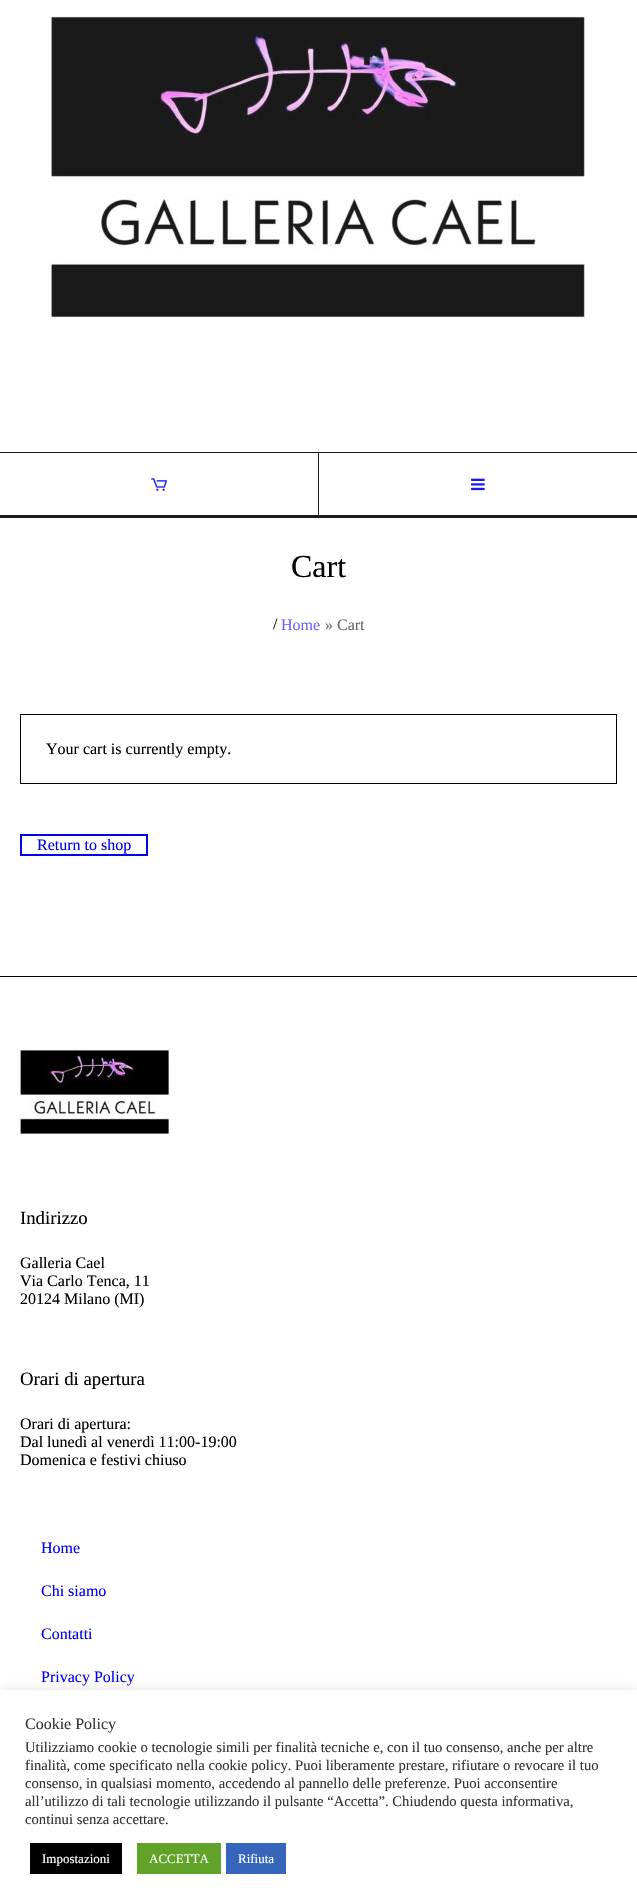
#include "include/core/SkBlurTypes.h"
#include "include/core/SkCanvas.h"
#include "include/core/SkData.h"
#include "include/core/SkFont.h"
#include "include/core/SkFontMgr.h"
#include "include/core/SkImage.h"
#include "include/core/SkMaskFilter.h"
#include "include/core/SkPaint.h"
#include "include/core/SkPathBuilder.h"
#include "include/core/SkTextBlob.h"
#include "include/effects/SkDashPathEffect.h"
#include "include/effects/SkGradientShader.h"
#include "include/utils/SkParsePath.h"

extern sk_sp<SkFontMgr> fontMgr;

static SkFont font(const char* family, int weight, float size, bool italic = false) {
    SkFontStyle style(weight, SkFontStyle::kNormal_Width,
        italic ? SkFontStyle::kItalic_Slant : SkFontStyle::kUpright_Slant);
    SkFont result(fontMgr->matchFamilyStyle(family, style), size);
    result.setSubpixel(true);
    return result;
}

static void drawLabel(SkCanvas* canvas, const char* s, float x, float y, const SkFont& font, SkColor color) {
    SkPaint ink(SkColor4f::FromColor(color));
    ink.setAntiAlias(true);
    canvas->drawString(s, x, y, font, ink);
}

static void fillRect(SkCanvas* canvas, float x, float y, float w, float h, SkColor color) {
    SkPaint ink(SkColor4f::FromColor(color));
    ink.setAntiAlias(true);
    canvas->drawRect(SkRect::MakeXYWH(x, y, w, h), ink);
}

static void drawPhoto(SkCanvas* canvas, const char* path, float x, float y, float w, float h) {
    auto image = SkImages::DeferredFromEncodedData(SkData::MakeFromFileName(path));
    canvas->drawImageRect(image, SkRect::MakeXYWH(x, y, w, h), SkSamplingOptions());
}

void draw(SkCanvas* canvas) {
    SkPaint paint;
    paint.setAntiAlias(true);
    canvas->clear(0xFFFFFFFF);
    fillRect(canvas, 0, 517, 637, 1, 0xFF1A1A1A);
    drawPhoto(canvas, "assets/img1.png", 49, 16, 536, 304);
    fillRect(canvas, 0, 452, 637, 1, 0xFF1A1A1A);
    fillRect(canvas, 0, 515, 637, 2, 0xFF1A1A1A);
    fillRect(canvas, 318, 453, 1, 62, 0xFF1A1A1A);
    drawPhoto(canvas, "assets/img2.png", 151, 478, 16, 13);
    drawPhoto(canvas, "assets/img3.png", 471, 478, 14, 13);
    SkFont font1 = font("Liberation Serif", 400, 32);
    drawLabel(canvas, "Cart", 291, 577, font1, 0xFF000000);
    SkFont font2 = font("Liberation Serif", 400, 16);
    drawLabel(canvas, "/", 273, 629, font2, 0xFF000000);
    drawLabel(canvas, "Home", 281, 630, font2, 0xFF6666F5);
    drawLabel(canvas, "» Cart", 325, 630, font2, 0xFF666666);
    paint.setStroke(true);
    paint.setStrokeWidth(1);
    paint.setColor(0xFF000000);
    canvas->drawRect(SkRect::MakeXYWH(20.5f, 714.5f, 596, 69), paint);
    drawLabel(canvas, "Your cart is currently empty.", 46, 754, font2, 0xFF000000);
    paint.setStrokeWidth(2);
    paint.setColor(0xFF0000EE);
    canvas->drawRect(SkRect::MakeXYWH(21, 835, 126, 20), paint);
    drawLabel(canvas, "Return to shop", 37, 850, font2, 0xFF0000EE);
    fillRect(canvas, 0, 976, 637, 1, 0xFF000000);
    drawPhoto(canvas, "assets/img4.png", 20, 1049, 150, 87);
    SkFont font3 = font("Liberation Serif", 400, 18.75f);
    drawLabel(canvas, "Indirizzo", 20, 1224, font3, 0xFF000000);
    drawLabel(canvas, "Galleria Cael", 20, 1268, font2, 0xFF000000);
    drawLabel(canvas, "Via Carlo Tenca, 11", 20, 1286, font2, 0xFF000000);
    drawLabel(canvas, "20124 Milano (MI)", 20, 1304, font2, 0xFF000000);
    drawLabel(canvas, "Orari di apertura", 20, 1385, font3, 0xFF000000);
    drawLabel(canvas, "Orari di apertura:", 20, 1429, font2, 0xFF000000);
    drawLabel(canvas, "Dal lunedì al venerdì 11:00-19:00", 20, 1447, font2, 0xFF000000);
    drawLabel(canvas, "Domenica e festivi chiuso", 20, 1465, font2, 0xFF000000);
    drawLabel(canvas, "Home", 41, 1553, font2, 0xFF0000EE);
    drawLabel(canvas, "Chi siamo", 41, 1596, font2, 0xFF0000EE);
    drawLabel(canvas, "Contatti", 41, 1639, font2, 0xFF0000EE);
    drawLabel(canvas, "Privacy Policy", 41, 1682, font2, 0xFF0000EE);
    paint.setStroke(false);
    paint.setColor(0x4DACABAB);
    paint.setMaskFilter(SkMaskFilter::MakeBlur(kNormal_SkBlurStyle, 5));
    canvas->drawRect(SkRect::MakeXYWH(0, 1689, 637, 214), paint);
    paint.setMaskFilter(nullptr);
    fillRect(canvas, 0, 1690, 637, 214, 0xFFFFFFFF);
    drawLabel(canvas, "Cookie Policy", 25, 1729, font2, 0xFF333333);
    SkFont font4 = font("Liberation Serif", 400, 14.65f);
    drawLabel(canvas, "Utilizziamo cookie o tecnologie simili per finalità tecniche e, con il tuo consenso, anche per altre", 25, 1752, font4, 0xFF333333);
    drawLabel(canvas, "finalità, come specificato nella cookie policy. Puoi liberamente prestare, rifiutare o revocare il tuo", 25, 1770, font4, 0xFF333333);
    drawLabel(canvas, "consenso, in qualsiasi momento, accedendo al pannello delle preferenze. Puoi acconsentire", 25, 1788, font4, 0xFF333333);
    drawLabel(canvas, "all’utilizzo di tali tecnologie utilizzando il pulsante “Accetta”. Chiudendo questa informativa,", 25, 1806, font4, 0xFF333333);
    drawLabel(canvas, "continui senza accettare.", 25, 1824, font4, 0xFF333333);
    fillRect(canvas, 30, 1843, 92, 31, 0xFF000000);
    SkFont font5 = font("Liberation Serif", 400, 13);
    drawLabel(canvas, "Impostazioni", 42, 1863, font5, 0xFFFFFFFF);
    fillRect(canvas, 137, 1843, 84, 31, 0xFF61A229);
    drawLabel(canvas, "ACCETTA", 149, 1863, font5, 0xFFFFFFFF);
    fillRect(canvas, 226, 1843, 60, 31, 0xFF3566BB);
    drawLabel(canvas, "Rifiuta", 238, 1863, font5, 0xFFFFFFFF);
}
